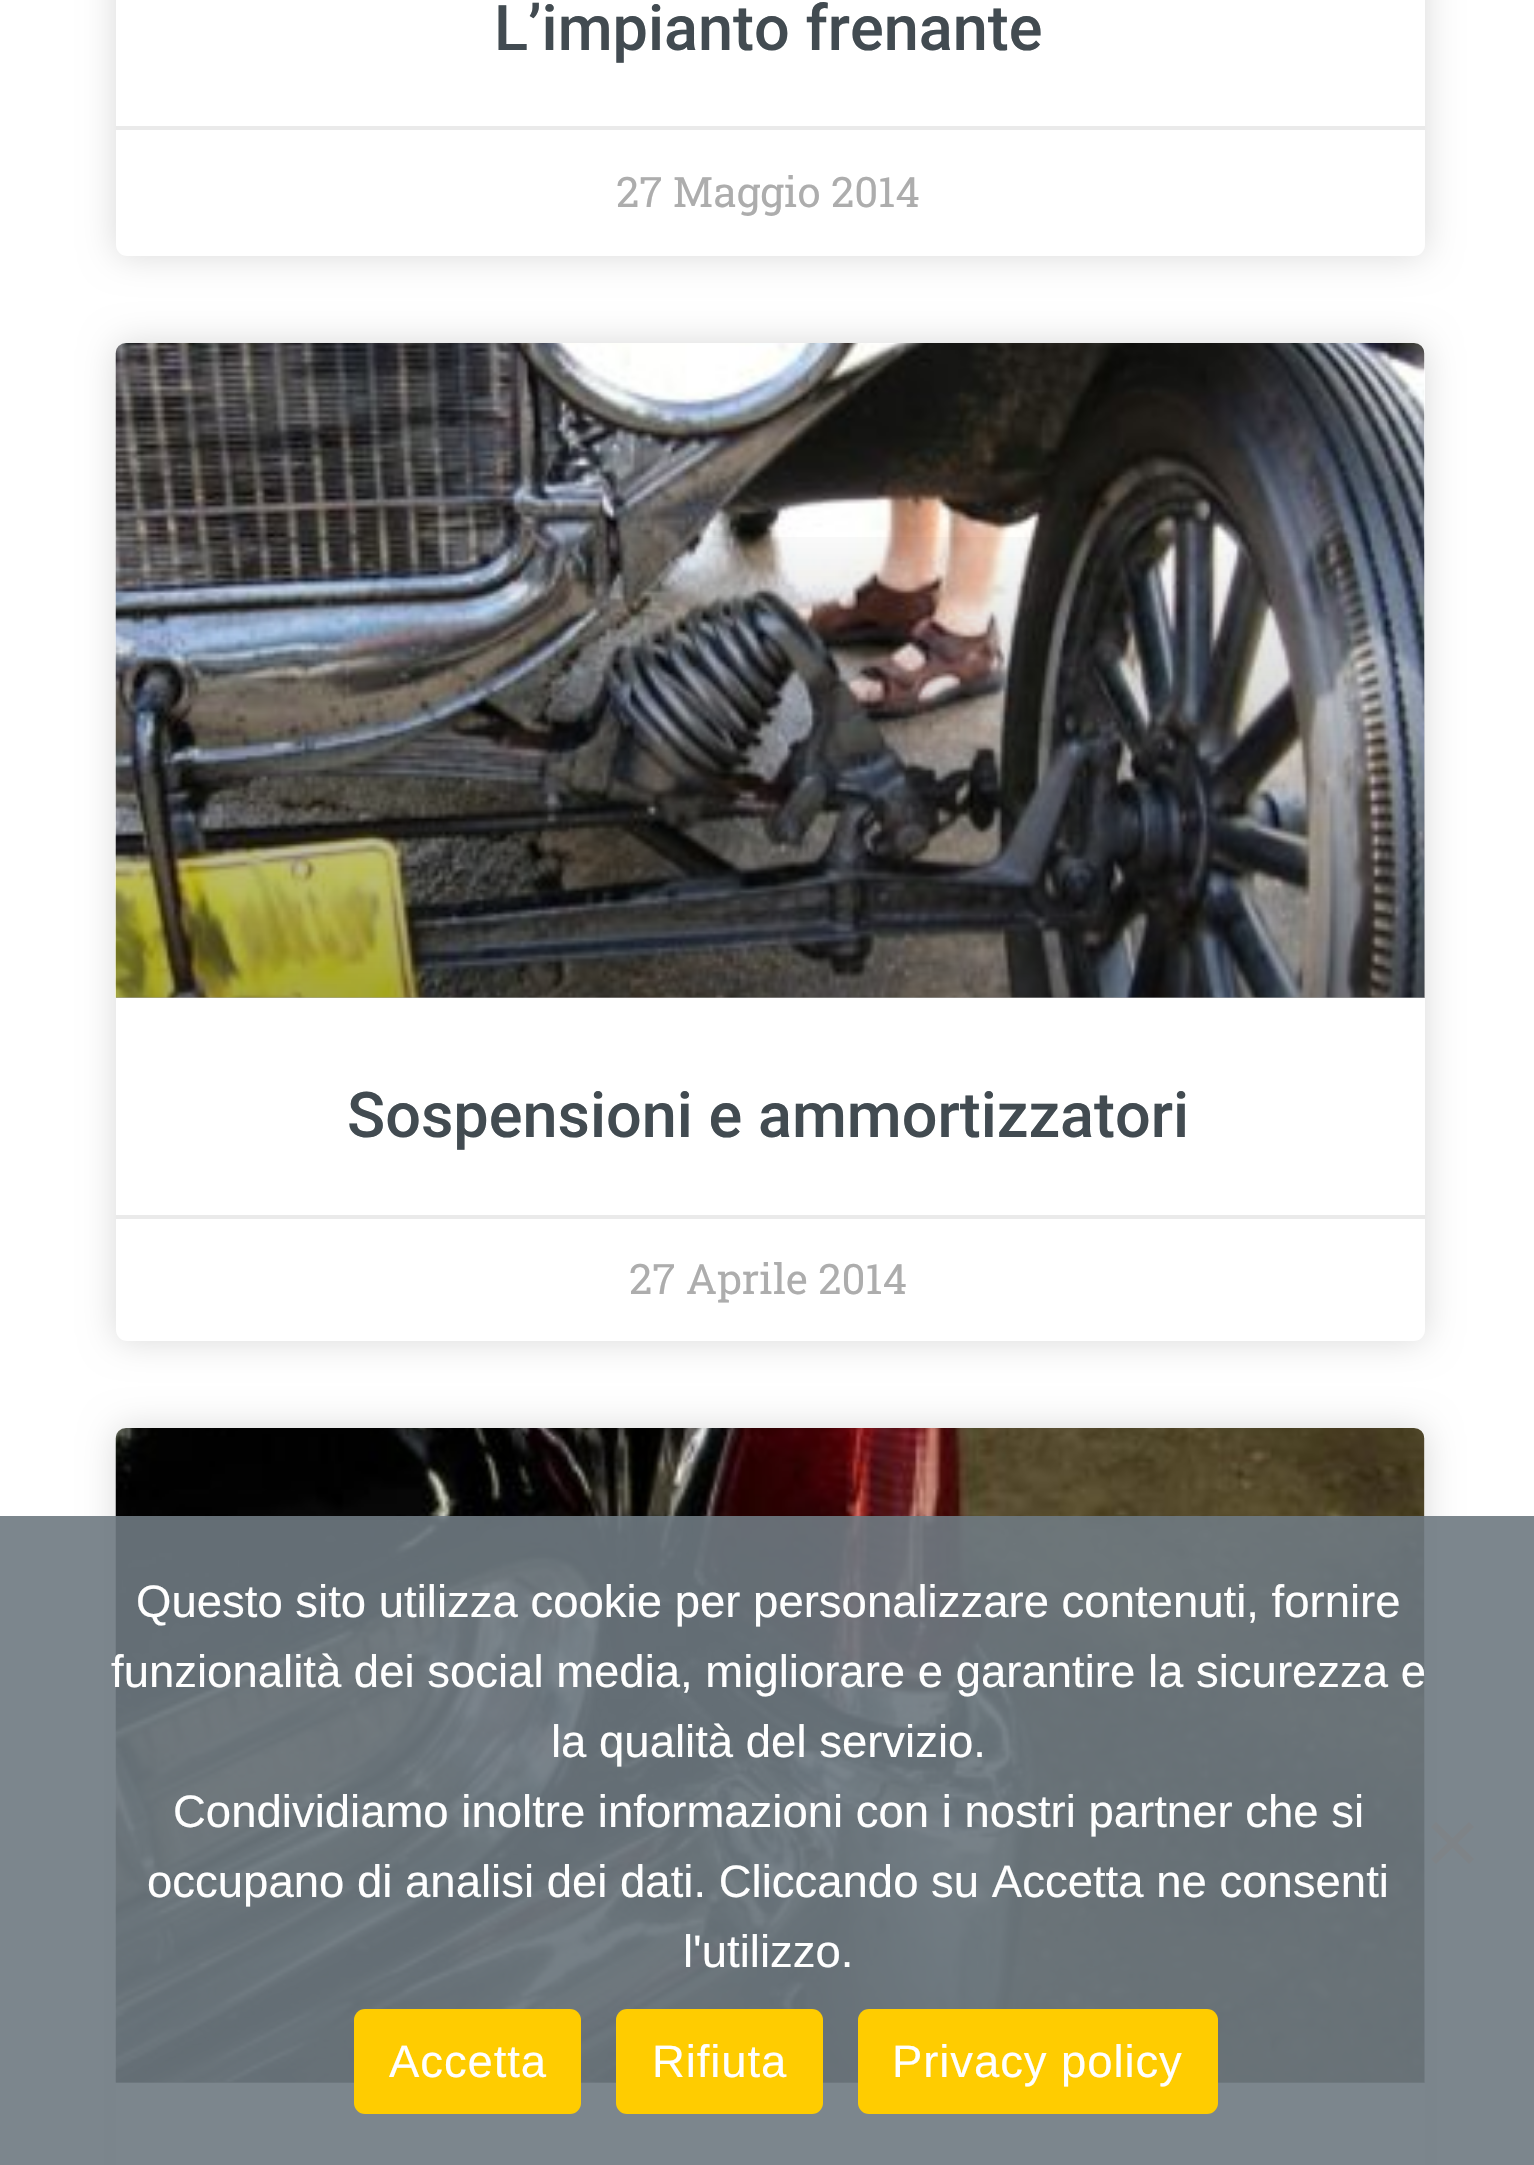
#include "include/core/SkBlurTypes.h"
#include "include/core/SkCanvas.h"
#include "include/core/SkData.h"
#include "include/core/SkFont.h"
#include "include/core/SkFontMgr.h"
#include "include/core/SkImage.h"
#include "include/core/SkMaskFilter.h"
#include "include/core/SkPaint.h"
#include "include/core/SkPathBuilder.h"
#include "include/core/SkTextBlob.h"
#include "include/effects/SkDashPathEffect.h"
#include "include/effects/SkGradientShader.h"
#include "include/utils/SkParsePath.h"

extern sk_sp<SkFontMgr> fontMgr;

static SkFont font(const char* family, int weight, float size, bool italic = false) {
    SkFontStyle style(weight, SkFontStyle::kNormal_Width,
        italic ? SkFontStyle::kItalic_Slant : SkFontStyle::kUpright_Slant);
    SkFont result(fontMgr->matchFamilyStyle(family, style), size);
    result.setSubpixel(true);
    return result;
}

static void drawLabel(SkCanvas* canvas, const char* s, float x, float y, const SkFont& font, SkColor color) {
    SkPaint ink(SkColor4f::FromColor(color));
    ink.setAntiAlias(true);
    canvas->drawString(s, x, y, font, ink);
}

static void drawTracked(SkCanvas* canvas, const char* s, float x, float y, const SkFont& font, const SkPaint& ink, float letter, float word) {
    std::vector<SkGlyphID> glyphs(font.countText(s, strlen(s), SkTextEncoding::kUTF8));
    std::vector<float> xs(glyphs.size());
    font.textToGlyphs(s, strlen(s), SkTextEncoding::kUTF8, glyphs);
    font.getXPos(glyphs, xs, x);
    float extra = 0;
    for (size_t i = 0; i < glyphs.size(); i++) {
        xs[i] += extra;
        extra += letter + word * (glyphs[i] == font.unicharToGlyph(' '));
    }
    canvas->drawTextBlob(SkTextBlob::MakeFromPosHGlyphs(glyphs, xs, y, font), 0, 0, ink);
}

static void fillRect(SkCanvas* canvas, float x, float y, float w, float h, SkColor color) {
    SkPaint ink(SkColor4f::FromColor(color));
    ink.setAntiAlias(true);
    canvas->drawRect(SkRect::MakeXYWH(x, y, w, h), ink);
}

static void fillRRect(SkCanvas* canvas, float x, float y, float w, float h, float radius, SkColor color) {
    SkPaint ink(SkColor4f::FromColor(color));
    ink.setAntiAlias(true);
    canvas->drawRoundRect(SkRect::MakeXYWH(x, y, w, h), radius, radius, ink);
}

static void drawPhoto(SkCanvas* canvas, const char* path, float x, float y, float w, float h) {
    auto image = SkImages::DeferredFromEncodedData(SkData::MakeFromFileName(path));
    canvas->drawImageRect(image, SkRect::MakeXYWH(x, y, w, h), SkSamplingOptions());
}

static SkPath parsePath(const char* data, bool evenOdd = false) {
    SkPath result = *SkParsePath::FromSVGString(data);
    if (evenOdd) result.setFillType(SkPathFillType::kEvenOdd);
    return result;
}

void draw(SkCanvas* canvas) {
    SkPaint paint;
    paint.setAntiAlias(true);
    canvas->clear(0xFFFFFFFF);
    paint.setColor(0x26000000);
    paint.setMaskFilter(SkMaskFilter::MakeBlur(kNormal_SkBlurStyle, 17.5f));
    canvas->drawRoundRect(SkRect::MakeXYWH(116, -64, 1309, 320), 11, 11, paint);
    paint.setMaskFilter(nullptr);
    fillRRect(canvas, 116, -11, 1309, 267, 11, 0xFFFFFFFF);
    SkFont font1 = font("Roboto", 500, 63);
    drawLabel(canvas, "L’impianto frenante", 494, 50, font1, 0xFF424B51);
    fillRect(canvas, 116, 126, 1309, 4, 0xFFEAEAEA);
    SkFont font2 = font("Roboto Slab", 400, 42);
    drawLabel(canvas, "27 Maggio 2014", 616, 207, font2, 0xFFADADAD);
    paint.setMaskFilter(SkMaskFilter::MakeBlur(kNormal_SkBlurStyle, 17.5f));
    canvas->drawRoundRect(SkRect::MakeXYWH(116, 343, 1309, 998), 11, 11, paint);
    paint.setMaskFilter(nullptr);
    fillRRect(canvas, 116, 343, 1309, 998, 11, 0xFFFFFFFF);
    drawPhoto(canvas, "assets/img1.png", 115, 343, 1310, 655);
    {
        const SkColor colors[] = {0x59000000, 0x00000000};
        const float stops[] = {0, 0.75f};
        const SkPoint ends[] = {{770, 998}, {770, 343}};
        paint.setShader(SkGradientShader::MakeLinear(ends, colors, stops, 2, SkTileMode::kClamp));
        paint.setAlpha(255);
    }
    canvas->drawRect(SkRect::MakeXYWH(116, 537, 1309, 461), paint);
    drawLabel(canvas, "Sospensioni e ammortizzatori", 347, 1137, font1, 0xFF424B51);
    fillRect(canvas, 116, 1215, 1309, 4, 0xFFEAEAEA);
    drawLabel(canvas, "27 Aprile 2014", 629, 1294, font2, 0xFFADADAD);
    paint.setShader(nullptr);
    paint.setColor(0x26000000);
    paint.setMaskFilter(SkMaskFilter::MakeBlur(kNormal_SkBlurStyle, 17.5f));
    canvas->drawRoundRect(SkRect::MakeXYWH(116, 1428, 1309, 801), 11, 11, paint);
    paint.setMaskFilter(nullptr);
    fillRRect(canvas, 116, 1428, 1309, 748, 11, 0xFFFFFFFF);
    drawPhoto(canvas, "assets/img2.png", 115, 1428, 1310, 655);
    {
        const SkColor colors[] = {0x59000000, 0x00000000};
        const float stops[] = {0, 0.75f};
        const SkPoint ends[] = {{770, 2083}, {770, 1428}};
        paint.setShader(SkGradientShader::MakeLinear(ends, colors, stops, 2, SkTileMode::kClamp));
        paint.setAlpha(255);
    }
    canvas->drawRect(SkRect::MakeXYWH(116, 1622, 1309, 461), paint);
    fillRect(canvas, 0, 1516, 1534, 649, 0xE66E7981);
    SkFont font3 = font("Liberation Sans", 400, 45.5f);
    drawLabel(canvas, "Questo sito utilizza cookie per personalizzare contenuti, fornire", 136, 1617, font3, 0xFFFFFFFF);
    drawLabel(canvas, "funzionalità dei social media, migliorare e garantire la sicurezza e", 111, 1687, font3, 0xFFFFFFFF);
    drawLabel(canvas, "la qualità del servizio.", 551, 1757, font3, 0xFFFFFFFF);
    drawLabel(canvas, "Condividiamo inoltre informazioni con i nostri partner che si", 173, 1827, font3, 0xFFFFFFFF);
    drawLabel(canvas, "occupano di analisi dei dati. Cliccando su Accetta ne consenti", 147, 1897, font3, 0xFFFFFFFF);
    drawLabel(canvas, "l'utilizzo.", 683, 1967, font3, 0xFFFFFFFF);
    paint.setShader(nullptr);
    paint.setColor(0xFF7E8387);
    canvas->drawPath(parsePath("M1469 1822L1474 1827L1436 1864L1431 1859Z"), paint);
    canvas->drawPath(parsePath("M1431 1827L1436 1822L1474 1859L1469 1864Z"), paint);
    fillRRect(canvas, 354, 2009, 227, 105, 11, 0xFFFFCC00);
    paint.setColor(0xFFFFFFFF);
    drawTracked(canvas, "Accetta", 389, 2077, font3, paint, 0.9f, 0);
    fillRRect(canvas, 616, 2009, 207, 105, 11, 0xFFFFCC00);
    drawTracked(canvas, "Rifiuta", 652, 2077, font3, paint, 0.9f, 0);
    fillRRect(canvas, 858, 2009, 360, 105, 11, 0xFFFFCC00);
    drawTracked(canvas, "Privacy policy", 892, 2077, font3, paint, 0.9f, 0);
}
